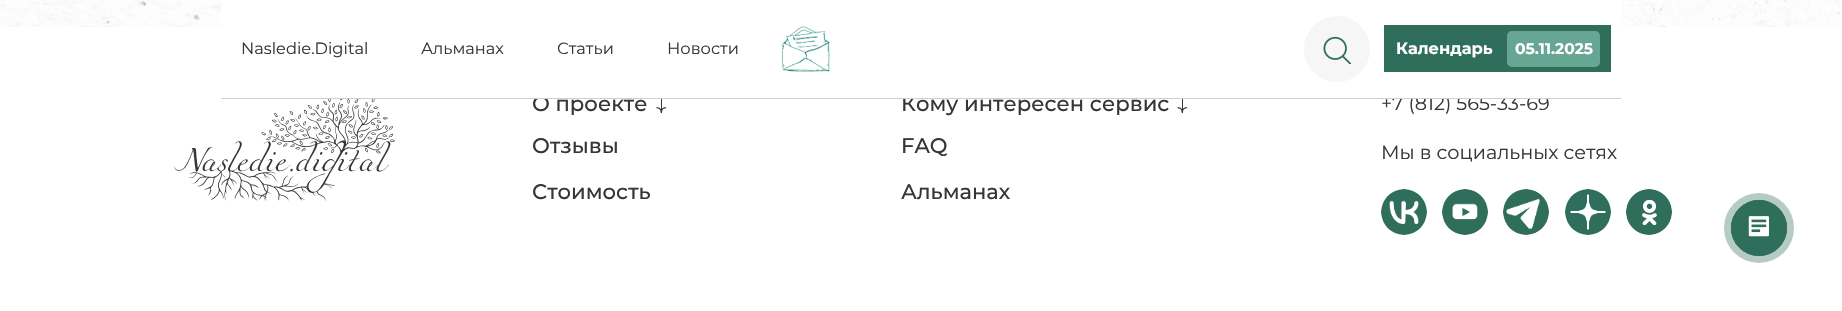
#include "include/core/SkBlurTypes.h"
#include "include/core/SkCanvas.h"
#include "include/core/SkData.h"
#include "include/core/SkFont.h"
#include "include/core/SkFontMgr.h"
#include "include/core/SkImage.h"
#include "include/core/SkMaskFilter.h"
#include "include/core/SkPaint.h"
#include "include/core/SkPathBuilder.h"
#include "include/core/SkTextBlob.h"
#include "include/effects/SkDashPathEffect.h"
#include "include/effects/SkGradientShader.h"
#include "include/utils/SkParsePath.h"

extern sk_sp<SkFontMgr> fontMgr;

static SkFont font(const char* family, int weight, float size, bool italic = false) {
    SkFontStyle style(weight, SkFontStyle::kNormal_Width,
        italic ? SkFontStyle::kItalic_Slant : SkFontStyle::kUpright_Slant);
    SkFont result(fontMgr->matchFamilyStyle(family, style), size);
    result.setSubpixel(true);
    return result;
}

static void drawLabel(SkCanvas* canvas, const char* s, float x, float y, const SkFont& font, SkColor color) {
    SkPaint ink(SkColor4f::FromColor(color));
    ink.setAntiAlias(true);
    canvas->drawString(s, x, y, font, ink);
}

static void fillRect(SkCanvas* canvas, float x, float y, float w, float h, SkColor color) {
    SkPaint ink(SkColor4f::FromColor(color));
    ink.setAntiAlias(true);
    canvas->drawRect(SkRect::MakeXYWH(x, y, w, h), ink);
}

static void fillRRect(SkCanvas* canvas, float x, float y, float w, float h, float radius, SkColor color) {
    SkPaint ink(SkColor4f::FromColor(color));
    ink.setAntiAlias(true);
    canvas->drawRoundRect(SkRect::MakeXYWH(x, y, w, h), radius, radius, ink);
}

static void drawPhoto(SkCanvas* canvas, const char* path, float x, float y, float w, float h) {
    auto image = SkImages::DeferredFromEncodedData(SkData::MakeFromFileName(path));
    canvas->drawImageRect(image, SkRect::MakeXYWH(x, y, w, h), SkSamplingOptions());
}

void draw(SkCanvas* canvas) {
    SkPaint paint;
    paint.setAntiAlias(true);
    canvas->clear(0xFFFFFFFF);
    drawPhoto(canvas, "assets/img1.png", 0, 0, 1841, 27);
    SkFont font1 = font("Montserrat", 500, 21.1f);
    drawLabel(canvas, "О проекте", 532, 111, font1, 0xFF363636);
    drawLabel(canvas, "Кому интересен сервис", 901, 111, font1, 0xFF363636);
    SkFont font2 = font("Montserrat", 400, 19.25f);
    drawLabel(canvas, "+7 (812) 565-33-69", 1381, 110, font2, 0xFF363636);
    fillRect(canvas, 221, 0, 1400, 98, 0xFFFFFFFF);
    fillRect(canvas, 221, 98, 1400, 1, 0xFFCFCFCF);
    SkFont font3 = font("Montserrat", 400, 16.25f);
    drawLabel(canvas, "Nasledie.Digital", 241, 54, font3, 0xFF363636);
    drawLabel(canvas, "Альманах", 421, 54, font3, 0xFF363636);
    drawLabel(canvas, "Статьи", 557, 54, font3, 0xFF363636);
    drawLabel(canvas, "Новости", 667, 54, font3, 0xFF363636);
    drawPhoto(canvas, "assets/img2.png", 782, 26, 48, 46);
    paint.setColor(0xFFF6F6F6);
    canvas->drawCircle(1337, 49, 33, paint);
    drawPhoto(canvas, "assets/img3.png", 1323, 36, 28, 28);
    fillRect(canvas, 1384, 25, 227, 47, 0xFF2F6E5B);
    SkFont font4 = font("Montserrat", 700, 16.25f);
    drawLabel(canvas, "Календарь", 1396, 54, font4, 0xFFFFFFFF);
    fillRRect(canvas, 1507, 31, 93, 36, 5, 0xFF66A692);
    SkFont font5 = font("Montserrat", 700, 15.5f);
    drawLabel(canvas, "05.11.2025", 1515, 54, font5, 0xFFFFFFFF);
    drawPhoto(canvas, "assets/img4.png", 174, 99, 221, 102);
    drawPhoto(canvas, "assets/img5.png", 656, 99, 11, 14);
    drawPhoto(canvas, "assets/img5.png", 1177, 99, 11, 14);
    drawLabel(canvas, "Отзывы", 532, 153, font1, 0xFF363636);
    drawLabel(canvas, "FAQ", 901, 153, font1, 0xFF363636);
    drawLabel(canvas, "Стоимость", 532, 199, font1, 0xFF363636);
    drawLabel(canvas, "Альманах", 901, 199, font1, 0xFF363636);
    drawLabel(canvas, "Мы в социальных сетях", 1381, 159, font2, 0xFF363636);
    drawPhoto(canvas, "assets/img6.png", 1381, 189, 46, 46);
    drawPhoto(canvas, "assets/img7.png", 1442, 189, 46, 46);
    drawPhoto(canvas, "assets/img8.png", 1503, 189, 46, 46);
    drawPhoto(canvas, "assets/img9.png", 1565, 189, 46, 46);
    drawPhoto(canvas, "assets/img10.png", 1626, 189, 46, 46);
    paint.setColor(0xFFD9E2DE);
    canvas->drawCircle(1759, 228, 35, paint);
    paint.setStroke(true);
    paint.setStrokeWidth(0.8f);
    paint.setColor(0xFF3F6C5C);
    canvas->drawCircle(1759, 228, 27.6f, paint);
    paint.setStroke(false);
    paint.setColor(0x332F6E5B);
    canvas->drawCircle(1759, 228, 35, paint);
    paint.setStroke(true);
    paint.setColor(0xFF2F6E5B);
    canvas->drawCircle(1759, 228, 27.6f, paint);
    paint.setStroke(false);
    canvas->drawCircle(1759, 228, 28, paint);
    drawPhoto(canvas, "assets/img11.png", 1748, 216, 21, 21);
}
